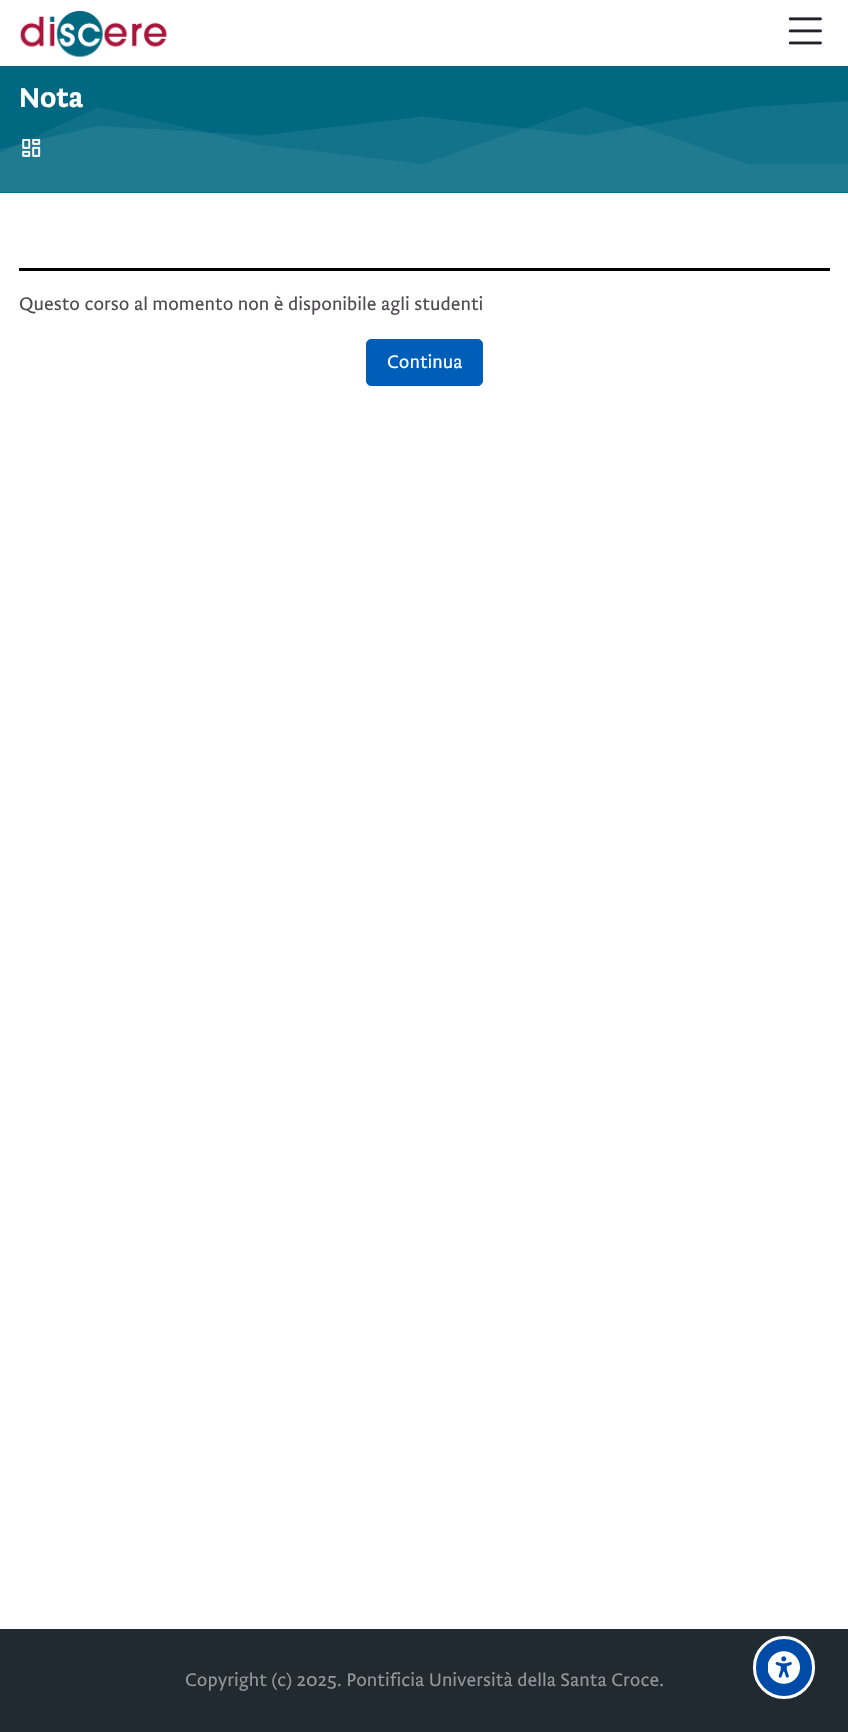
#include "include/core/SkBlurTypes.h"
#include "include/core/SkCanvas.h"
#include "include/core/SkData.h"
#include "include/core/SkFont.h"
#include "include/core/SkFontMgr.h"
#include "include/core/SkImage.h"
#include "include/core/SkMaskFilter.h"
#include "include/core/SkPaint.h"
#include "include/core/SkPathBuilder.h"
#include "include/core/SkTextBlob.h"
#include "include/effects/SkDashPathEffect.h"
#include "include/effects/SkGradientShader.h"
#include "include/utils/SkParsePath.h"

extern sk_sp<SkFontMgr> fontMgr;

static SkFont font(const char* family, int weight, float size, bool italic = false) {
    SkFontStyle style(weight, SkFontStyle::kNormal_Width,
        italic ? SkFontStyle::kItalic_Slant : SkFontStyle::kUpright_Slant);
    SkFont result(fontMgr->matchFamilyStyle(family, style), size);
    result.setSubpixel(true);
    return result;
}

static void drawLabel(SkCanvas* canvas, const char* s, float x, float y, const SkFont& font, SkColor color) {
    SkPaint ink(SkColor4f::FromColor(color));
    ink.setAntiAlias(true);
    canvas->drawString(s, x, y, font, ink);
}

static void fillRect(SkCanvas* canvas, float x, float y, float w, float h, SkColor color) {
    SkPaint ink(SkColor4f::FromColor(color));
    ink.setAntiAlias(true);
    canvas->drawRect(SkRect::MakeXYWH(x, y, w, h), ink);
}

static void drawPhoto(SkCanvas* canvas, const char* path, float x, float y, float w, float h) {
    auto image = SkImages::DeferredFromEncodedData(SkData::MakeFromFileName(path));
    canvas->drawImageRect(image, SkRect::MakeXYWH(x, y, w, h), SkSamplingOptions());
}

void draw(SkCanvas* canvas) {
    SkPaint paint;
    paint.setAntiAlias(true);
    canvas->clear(0xFFFFFFFF);
    drawPhoto(canvas, "assets/img1.png", 20, 11, 147, 46);
    drawPhoto(canvas, "assets/img2.png", 788, 17, 34, 28);
    fillRect(canvas, 0, 66, 848, 127, 0xFF006881);
    drawPhoto(canvas, "assets/img3.png", 0, 101, 848, 92);
    SkFont font1 = font("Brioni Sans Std", 500, 28);
    drawLabel(canvas, "Nota", 19, 107, font1, 0xFFFFFFFF);
    drawPhoto(canvas, "assets/img4.png", 22, 139, 19, 18);
    fillRect(canvas, 19, 268, 811, 3, 0xFF000000);
    SkFont font2 = font("Brioni Sans Std", 300, 18.75f);
    drawLabel(canvas, "Questo corso al momento non è disponibile agli studenti", 19, 310, font2, 0xFF4F4C51);
    paint.setColor(0xFF005EB8);
    canvas->drawRoundRect(SkRect::MakeXYWH(366.5f, 339.5f, 116, 46), 4.5f, 4.5f, paint);
    paint.setStroke(true);
    paint.setStrokeWidth(1);
    canvas->drawRoundRect(SkRect::MakeXYWH(366.5f, 339.5f, 116, 46), 4.5f, 4.5f, paint);
    drawLabel(canvas, "Continua", 387, 368, font2, 0xFFFFFFFF);
    fillRect(canvas, 0, 1629, 848, 103, 0xFF212A31);
    drawLabel(canvas, "Copyright (c) 2025. Pontificia Università della Santa Croce.", 185, 1686, font2, 0xFF909699);
    paint.setStroke(false);
    paint.setColor(0xFF004BA8);
    canvas->drawRoundRect(SkRect::MakeXYWH(754.5f, 1637.5f, 59, 60), 29.5f, 29.5f, paint);
    paint.setStroke(true);
    paint.setStrokeWidth(3);
    paint.setColor(0xFFFFFFFF);
    canvas->drawRoundRect(SkRect::MakeXYWH(754.5f, 1637.5f, 59, 60), 29.5f, 29.5f, paint);
    drawPhoto(canvas, "assets/img5.png", 768, 1651, 32, 33);
}
